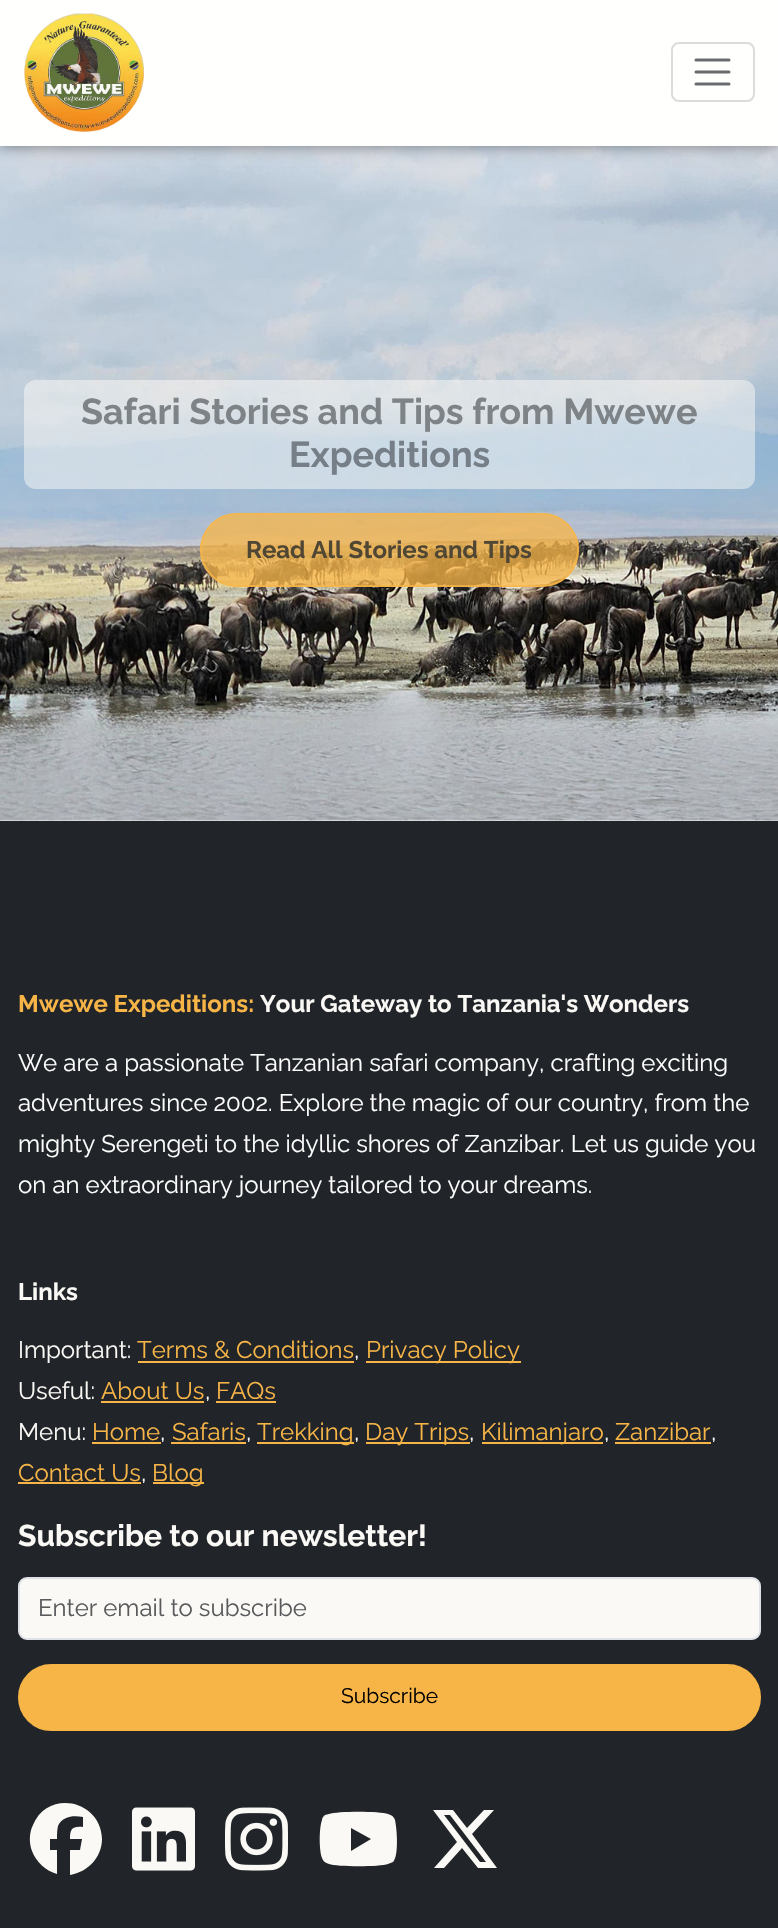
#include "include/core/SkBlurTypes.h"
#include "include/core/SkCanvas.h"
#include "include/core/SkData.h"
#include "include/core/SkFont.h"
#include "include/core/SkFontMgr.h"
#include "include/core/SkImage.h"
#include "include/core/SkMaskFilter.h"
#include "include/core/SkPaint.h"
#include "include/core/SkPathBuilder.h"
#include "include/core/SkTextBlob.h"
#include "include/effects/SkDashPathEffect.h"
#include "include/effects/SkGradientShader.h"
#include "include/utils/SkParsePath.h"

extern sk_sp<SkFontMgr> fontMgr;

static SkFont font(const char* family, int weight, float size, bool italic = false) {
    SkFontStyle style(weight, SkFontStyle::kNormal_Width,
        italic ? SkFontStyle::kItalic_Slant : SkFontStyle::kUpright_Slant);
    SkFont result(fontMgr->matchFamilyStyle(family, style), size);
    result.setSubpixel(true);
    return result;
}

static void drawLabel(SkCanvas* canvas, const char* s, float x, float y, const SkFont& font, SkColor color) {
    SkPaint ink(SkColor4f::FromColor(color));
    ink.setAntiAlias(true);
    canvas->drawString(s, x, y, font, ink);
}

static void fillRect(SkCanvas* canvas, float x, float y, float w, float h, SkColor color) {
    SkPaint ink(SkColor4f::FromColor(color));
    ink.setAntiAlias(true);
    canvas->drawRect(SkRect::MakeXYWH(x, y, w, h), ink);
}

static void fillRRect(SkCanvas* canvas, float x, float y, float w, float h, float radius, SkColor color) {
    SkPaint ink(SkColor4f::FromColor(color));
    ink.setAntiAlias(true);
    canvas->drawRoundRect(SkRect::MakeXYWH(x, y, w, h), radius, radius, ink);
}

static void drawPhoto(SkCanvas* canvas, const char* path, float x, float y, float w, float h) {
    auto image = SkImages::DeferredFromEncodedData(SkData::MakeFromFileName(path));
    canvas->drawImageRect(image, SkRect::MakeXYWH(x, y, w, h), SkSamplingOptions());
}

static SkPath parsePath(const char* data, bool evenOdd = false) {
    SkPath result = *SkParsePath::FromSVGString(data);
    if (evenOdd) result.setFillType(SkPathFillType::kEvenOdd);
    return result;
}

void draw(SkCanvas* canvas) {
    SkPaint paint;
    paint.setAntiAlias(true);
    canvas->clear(0xFFFBF9F5);
    drawPhoto(canvas, "assets/img2.png", 0, 145, 778, 676);
    canvas->save();
    canvas->clipPath(parsePath("M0 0H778V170H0ZM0 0H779V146H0Z", true), true);
    paint.setColor(0x73000000);
    paint.setMaskFilter(SkMaskFilter::MakeBlur(kNormal_SkBlurStyle, 7.5f));
    canvas->drawRect(SkRect::MakeXYWH(0, 0, 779, 146), paint);
    paint.setMaskFilter(nullptr);
    canvas->restore();
    fillRect(canvas, 0, 0, 778, 146, 0xE6FFFFFF);
    drawPhoto(canvas, "assets/img1.png", 24, 13, 120, 119);
    paint.setStroke(true);
    paint.setStrokeWidth(2);
    paint.setColor(0xFFDCDCDC);
    canvas->drawRoundRect(SkRect::MakeXYWH(672, 43, 82, 58), 7, 7, paint);
    paint.setStrokeWidth(3);
    paint.setStrokeCap(SkPaint::kRound_Cap);
    paint.setColor(0xFF696B6D);
    canvas->drawPath(parsePath("M696 60H729M696 72H729M696 84H729"), paint);
    fillRRect(canvas, 24, 380, 731, 109, 12, 0x80FBF9F5);
    SkFont font1 = font("Raleway", 700, 35.9f);
    drawLabel(canvas, "Safari Stories and Tips from Mwewe", 81, 424, font1, 0xFF7D8387);
    drawLabel(canvas, "Expeditions", 289, 467, font1, 0xFF767F87);
    fillRRect(canvas, 200, 513, 379, 74, 37, 0xBFF8B547);
    paint.setStrokeWidth(2);
    paint.setStrokeCap(SkPaint::kButt_Cap);
    paint.setColor(0xBFF8B547);
    canvas->drawRoundRect(SkRect::MakeXYWH(201, 514, 377, 72), 36, 36, paint);
    SkFont font2 = font("Raleway", 700, 24);
    drawLabel(canvas, "Read All Stories and Tips", 246, 558, font2, 0xFF504634);
    fillRect(canvas, 0, 821, 778, 1107, 0xFF212529);
    drawLabel(canvas, "Mwewe Expeditions:", 18, 1012, font2, 0xFFF8B547);
    drawLabel(canvas, "Your Gateway to Tanzania's Wonders", 260, 1012, font2, 0xFFFBF9F5);
    SkFont font3 = font("Raleway", 400, 24);
    drawLabel(canvas, "We are a passionate Tanzanian safari company, crafting exciting", 18, 1071, font3, 0xFFFFFFFF);
    drawLabel(canvas, "adventures since 2002. Explore the magic of our country, from the", 18, 1111, font3, 0xFFFFFFFF);
    drawLabel(canvas, "mighty Serengeti to the idyllic shores of Zanzibar. Let us guide you", 18, 1152, font3, 0xFFFFFFFF);
    drawLabel(canvas, "on an extraordinary journey tailored to your dreams.", 18, 1193, font3, 0xFFFFFFFF);
    drawLabel(canvas, "Links", 18, 1300, font2, 0xFFFBF9F5);
    drawLabel(canvas, "Important:", 18, 1358, font3, 0xFFFBF9F5);
    drawLabel(canvas, "Terms & Conditions", 137, 1358, font3, 0xFFF8B547);
    fillRect(canvas, 138, 1361, 216, 2, 0xFFF8B547);
    drawLabel(canvas, ",", 354, 1358, font3, 0xFFFBF9F5);
    fillRect(canvas, 366, 1361, 155, 2, 0xFFF8B547);
    drawLabel(canvas, "Privacy Policy", 366, 1358, font3, 0xFFF8B547);
    drawLabel(canvas, "Useful:", 18, 1399, font3, 0xFFFBF9F5);
    drawLabel(canvas, "About Us", 101, 1399, font3, 0xFFF8B547);
    fillRect(canvas, 101, 1401, 103, 2, 0xFFF8B547);
    drawLabel(canvas, ",", 205, 1399, font3, 0xFFFBF9F5);
    drawLabel(canvas, "FAQs", 216, 1399, font3, 0xFFF8B547);
    fillRect(canvas, 216, 1401, 60, 2, 0xFFF8B547);
    drawLabel(canvas, "Menu:", 18, 1440, font3, 0xFFFBF9F5);
    drawLabel(canvas, "Home", 92, 1440, font3, 0xFFF8B547);
    fillRect(canvas, 92, 1442, 69, 2, 0xFFF8B547);
    drawLabel(canvas, ",", 160, 1440, font3, 0xFFFBF9F5);
    drawLabel(canvas, "Safaris", 172, 1440, font3, 0xFFF8B547);
    fillRect(canvas, 171, 1442, 75, 2, 0xFFF8B547);
    drawLabel(canvas, ",", 246, 1440, font3, 0xFFFBF9F5);
    fillRect(canvas, 257, 1442, 97, 2, 0xFFF8B547);
    drawLabel(canvas, "Trekking", 257, 1440, font3, 0xFFF8B547);
    drawLabel(canvas, ",", 354, 1440, font3, 0xFFFBF9F5);
    fillRect(canvas, 366, 1442, 104, 2, 0xFFF8B547);
    drawLabel(canvas, "Day Trips", 365, 1440, font3, 0xFFF8B547);
    drawLabel(canvas, ",", 469, 1440, font3, 0xFFFBF9F5);
    fillRect(canvas, 482, 1442, 121, 2, 0xFFF8B547);
    drawLabel(canvas, "Kilimanjaro", 481, 1440, font3, 0xFFF8B547);
    drawLabel(canvas, ",", 604, 1440, font3, 0xFFFBF9F5);
    drawLabel(canvas, "Zanzibar", 615, 1440, font3, 0xFFF8B547);
    fillRect(canvas, 615, 1442, 96, 2, 0xFFF8B547);
    drawLabel(canvas, ",", 711, 1440, font3, 0xFFFBF9F5);
    drawLabel(canvas, "Contact Us", 18, 1481, font3, 0xFFF8B547);
    fillRect(canvas, 18, 1482, 123, 2, 0xFFF8B547);
    drawLabel(canvas, ",", 141, 1481, font3, 0xFFFBF9F5);
    fillRect(canvas, 153, 1482, 51, 2, 0xFFF8B547);
    drawLabel(canvas, "Blog", 152, 1481, font3, 0xFFF8B547);
    SkFont font4 = font("Raleway", 700, 30);
    drawLabel(canvas, "Subscribe to our newsletter!", 18, 1546, font4, 0xFFFBF9F5);
    paint.setStroke(false);
    paint.setColor(0xFFFBF9F5);
    canvas->drawRoundRect(SkRect::MakeXYWH(19, 1578, 741, 61), 8, 8, paint);
    paint.setStroke(true);
    paint.setColor(0xFFDEE2E6);
    canvas->drawRoundRect(SkRect::MakeXYWH(19, 1578, 741, 61), 8, 8, paint);
    drawLabel(canvas, "Enter email to subscribe", 38, 1616, font3, 0xFF585A5C);
    paint.setStroke(false);
    paint.setColor(0xFFF8B547);
    canvas->drawRoundRect(SkRect::MakeXYWH(19, 1665, 741, 65), 32.5f, 32.5f, paint);
    paint.setStroke(true);
    canvas->drawRoundRect(SkRect::MakeXYWH(19, 1665, 741, 65), 32.5f, 32.5f, paint);
    SkFont font5 = font("Raleway", 400, 21);
    drawLabel(canvas, "Subscribe", 341, 1703, font5, 0xFF000000);
    paint.setStroke(false);
    paint.setColor(0xFFFBF9F5);
    canvas->drawPath(parsePath("M102 1839C101 1800 48 1789 33 1825C29 1833 29 1843 32 1851C36 1862 46 1871 57 1874V1850H50V1839H57C57 1835 57 1830 58 1826C62 1816 74 1815 83 1817V1827C72 1826 70 1829 70 1839H82L80 1850H70V1875C88 1872 102 1857 102 1839Z"), paint);
    drawPhoto(canvas, "assets/img3.png", 132, 1807, 63, 64);
    drawPhoto(canvas, "assets/img4.png", 225, 1807, 63, 64);
    canvas->drawPath(parsePath("M395 1820C394 1817 392 1815 388 1814C380 1811 337 1811 329 1814L325 1815C323 1817 322 1818 322 1820C319 1828 319 1850 322 1858C323 1861 325 1863 329 1864C337 1867 380 1867 388 1864L393 1862C399 1856 397 1829 395 1820ZM351 1851V1828V1851V1828L371 1839Z"), paint);
    canvas->drawPath(parsePath("M484 1810H494H484H494L472 1834L497 1868H478L462 1848L444 1868H434L457 1842L433 1810H453L467 1828ZM480 1862H486H480H486L450 1815H444Z"), paint);
}
